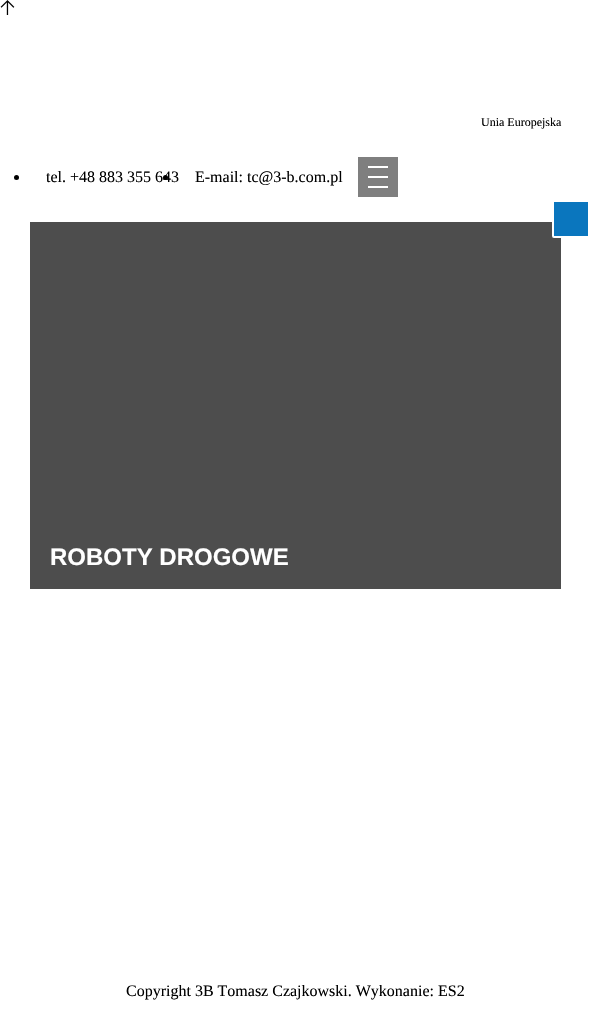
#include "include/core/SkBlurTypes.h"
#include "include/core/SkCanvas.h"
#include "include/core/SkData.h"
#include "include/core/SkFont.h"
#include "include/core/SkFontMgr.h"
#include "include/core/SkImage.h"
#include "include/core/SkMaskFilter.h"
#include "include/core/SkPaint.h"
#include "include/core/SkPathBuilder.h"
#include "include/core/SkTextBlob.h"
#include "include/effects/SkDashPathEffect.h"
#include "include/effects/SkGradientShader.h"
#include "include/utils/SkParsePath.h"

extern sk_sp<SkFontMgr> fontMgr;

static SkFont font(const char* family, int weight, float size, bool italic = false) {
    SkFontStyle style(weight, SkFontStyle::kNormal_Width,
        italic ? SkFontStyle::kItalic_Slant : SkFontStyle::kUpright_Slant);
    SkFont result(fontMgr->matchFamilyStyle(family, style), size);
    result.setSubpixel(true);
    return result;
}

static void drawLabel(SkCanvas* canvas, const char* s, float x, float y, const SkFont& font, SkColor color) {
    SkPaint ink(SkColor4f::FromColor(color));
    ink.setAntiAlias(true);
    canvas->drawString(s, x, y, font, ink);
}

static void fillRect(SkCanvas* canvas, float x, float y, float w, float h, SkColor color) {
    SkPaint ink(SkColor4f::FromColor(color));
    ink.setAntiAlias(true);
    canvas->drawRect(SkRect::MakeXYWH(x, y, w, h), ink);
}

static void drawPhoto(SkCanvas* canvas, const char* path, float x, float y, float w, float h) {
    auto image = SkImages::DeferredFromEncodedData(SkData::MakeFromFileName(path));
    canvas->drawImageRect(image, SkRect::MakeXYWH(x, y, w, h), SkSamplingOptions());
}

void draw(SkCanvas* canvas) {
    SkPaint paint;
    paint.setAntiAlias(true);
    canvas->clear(0xFFFFFFFF);
    drawPhoto(canvas, "assets/img1.png", 0, 0, 15, 15);
    SkFont font1 = font("Liberation Serif", 400, 12);
    drawLabel(canvas, "Unia Europejska", 481, 126, font1, 0xFF000000);
    paint.setColor(0xFF000000);
    canvas->drawCircle(16.5f, 177.5f, 2.5f, paint);
    SkFont font2 = font("Liberation Serif", 400, 16);
    drawLabel(canvas, "tel. +48 883 355 643", 46, 182, font2, 0xFF000000);
    canvas->drawCircle(165.5f, 177.5f, 2.5f, paint);
    drawLabel(canvas, "E-mail: tc@3-b.com.pl", 195, 182, font2, 0xFF000000);
    fillRect(canvas, 358, 157, 40, 40, 0xFF7F7F7F);
    fillRect(canvas, 368, 176, 20, 2, 0xFFFFFFFF);
    fillRect(canvas, 368, 166, 20, 2, 0xFFFFFFFF);
    fillRect(canvas, 368, 186, 20, 2, 0xFFFFFFFF);
    fillRect(canvas, 30, 222, 531, 367, 0xFF4D4D4D);
    SkFont font3 = font("Liberation Sans", 700, 24);
    drawLabel(canvas, "ROBOTY DROGOWE", 50, 565, font3, 0xFFFFFFFF);
    drawLabel(canvas, "Copyright 3B Tomasz Czajkowski. Wykonanie: ES2", 126, 996, font2, 0xFF000000);
    paint.setColor(0xFF0A76BE);
    canvas->drawRoundRect(SkRect::MakeXYWH(553, 201, 36, 36), 1, 1, paint);
    paint.setStroke(true);
    paint.setStrokeWidth(2);
    paint.setColor(0xFFFFFFFF);
    canvas->drawRoundRect(SkRect::MakeXYWH(553, 201, 36, 36), 1, 1, paint);
}
